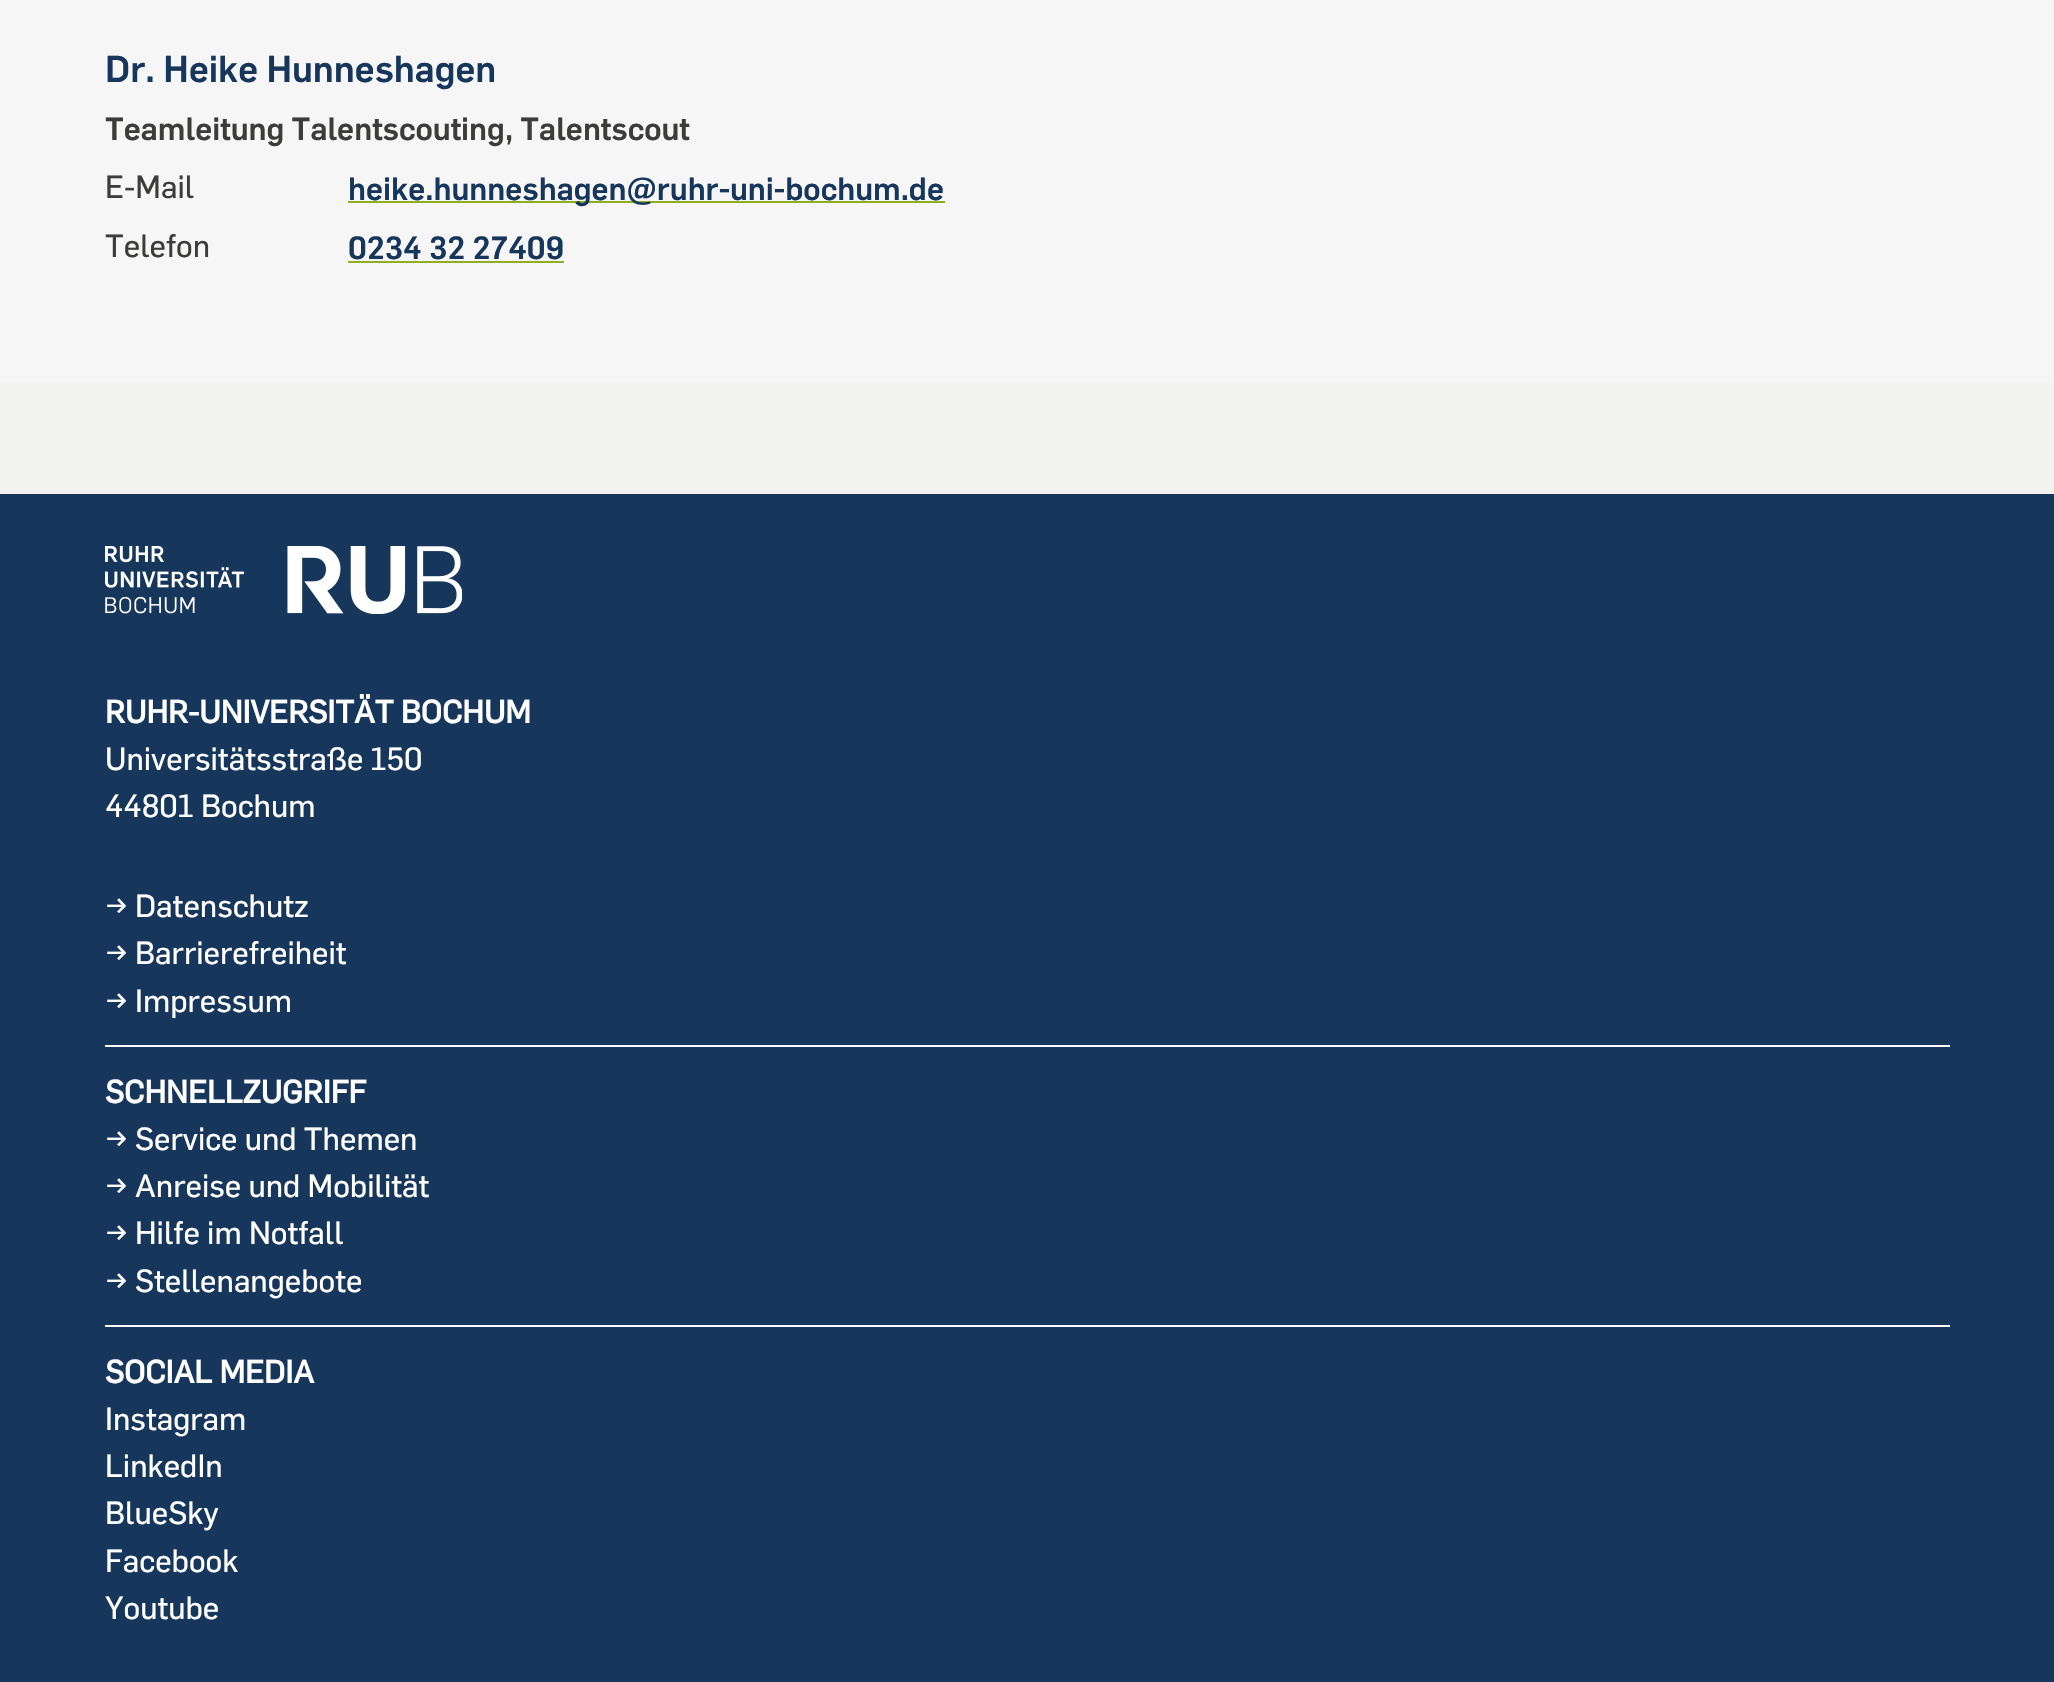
#include "include/core/SkBlurTypes.h"
#include "include/core/SkCanvas.h"
#include "include/core/SkData.h"
#include "include/core/SkFont.h"
#include "include/core/SkFontMgr.h"
#include "include/core/SkImage.h"
#include "include/core/SkMaskFilter.h"
#include "include/core/SkPaint.h"
#include "include/core/SkPathBuilder.h"
#include "include/core/SkTextBlob.h"
#include "include/effects/SkDashPathEffect.h"
#include "include/effects/SkGradientShader.h"
#include "include/utils/SkParsePath.h"

extern sk_sp<SkFontMgr> fontMgr;

static SkFont font(const char* family, int weight, float size, bool italic = false) {
    SkFontStyle style(weight, SkFontStyle::kNormal_Width,
        italic ? SkFontStyle::kItalic_Slant : SkFontStyle::kUpright_Slant);
    SkFont result(fontMgr->matchFamilyStyle(family, style), size);
    result.setSubpixel(true);
    return result;
}

static void drawLabel(SkCanvas* canvas, const char* s, float x, float y, const SkFont& font, SkColor color) {
    SkPaint ink(SkColor4f::FromColor(color));
    ink.setAntiAlias(true);
    canvas->drawString(s, x, y, font, ink);
}

static void fillRect(SkCanvas* canvas, float x, float y, float w, float h, SkColor color) {
    SkPaint ink(SkColor4f::FromColor(color));
    ink.setAntiAlias(true);
    canvas->drawRect(SkRect::MakeXYWH(x, y, w, h), ink);
}

static void drawPhoto(SkCanvas* canvas, const char* path, float x, float y, float w, float h) {
    auto image = SkImages::DeferredFromEncodedData(SkData::MakeFromFileName(path));
    canvas->drawImageRect(image, SkRect::MakeXYWH(x, y, w, h), SkSamplingOptions());
}

void draw(SkCanvas* canvas) {
    SkPaint paint;
    paint.setAntiAlias(true);
    canvas->clear(0xFFF6F6F6);
    SkFont font1 = font("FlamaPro", 500, 36.75f);
    drawLabel(canvas, "Dr. Heike Hunneshagen", 105, 82, font1, 0xFF17365C);
    SkFont font2 = font("FlamaPro", 500, 31.5f);
    drawLabel(canvas, "Teamleitung Talentscouting, Talentscout", 105, 140, font2, 0xFF3C3C3B);
    SkFont font3 = font("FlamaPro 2", 500, 31.5f);
    drawLabel(canvas, "E-Mail", 105, 198, font3, 0xFF3C3C3B);
    fillRect(canvas, 348, 201, 597, 2, 0xFF8DAE25);
    drawLabel(canvas, "heike.hunneshagen@ruhr-uni-bochum.de", 348, 200, font2, 0xFF17365C);
    drawLabel(canvas, "Telefon", 105, 257, font3, 0xFF3C3C3B);
    drawLabel(canvas, "0234 32 27409", 348, 259, font2, 0xFF17365C);
    fillRect(canvas, 348, 261, 216, 2, 0xFF8DAE25);
    fillRect(canvas, 0, 383, 2054, 111, 0xFFF2F2F1);
    fillRect(canvas, 0, 494, 2054, 1188, 0xFF17365C);
    drawPhoto(canvas, "assets/img1.png", 105, 546, 357, 68);
    fillRect(canvas, 105, 1045, 1845, 2, 0xFFFFFFFF);
    SkFont font4 = font("FlamaPro", 700, 31.5f);
    drawLabel(canvas, "RUHR-UNIVERSITÄT BOCHUM", 105, 723, font4, 0xFFFFFFFF);
    drawLabel(canvas, "Universitätsstraße 150", 105, 770, font3, 0xFFFFFFFF);
    drawLabel(canvas, "44801 Bochum", 105, 817, font3, 0xFFFFFFFF);
    SkFont font5 = font("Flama", 500, 31.5f);
    drawLabel(canvas, "→", 105, 917, font5, 0xFFFFFFFF);
    drawLabel(canvas, "Datenschutz", 135, 917, font3, 0xFFFFFFFF);
    drawLabel(canvas, "→", 105, 964, font5, 0xFFFFFFFF);
    drawLabel(canvas, "Barrierefreiheit", 135, 964, font3, 0xFFFFFFFF);
    drawLabel(canvas, "→", 105, 1012, font5, 0xFFFFFFFF);
    drawLabel(canvas, "Impressum", 135, 1012, font3, 0xFFFFFFFF);
    fillRect(canvas, 105, 1325, 1845, 2, 0xFFFFFFFF);
    drawLabel(canvas, "SCHNELLZUGRIFF", 105, 1103, font4, 0xFFFFFFFF);
    drawLabel(canvas, "→", 105, 1150, font5, 0xFFFFFFFF);
    drawLabel(canvas, "Service und Themen", 135, 1150, font3, 0xFFFFFFFF);
    drawLabel(canvas, "→", 105, 1197, font5, 0xFFFFFFFF);
    drawLabel(canvas, "Anreise und Mobilität", 135, 1197, font3, 0xFFFFFFFF);
    drawLabel(canvas, "→", 105, 1244, font5, 0xFFFFFFFF);
    drawLabel(canvas, "Hilfe im Notfall", 135, 1244, font3, 0xFFFFFFFF);
    drawLabel(canvas, "→", 105, 1292, font5, 0xFFFFFFFF);
    drawLabel(canvas, "Stellenangebote", 135, 1292, font3, 0xFFFFFFFF);
    drawLabel(canvas, "SOCIAL MEDIA", 105, 1383, font4, 0xFFFFFFFF);
    drawLabel(canvas, "Instagram", 105, 1430, font3, 0xFFFFFFFF);
    drawLabel(canvas, "LinkedIn", 105, 1477, font3, 0xFFFFFFFF);
    drawLabel(canvas, "BlueSky", 105, 1524, font3, 0xFFFFFFFF);
    drawLabel(canvas, "Facebook", 105, 1572, font3, 0xFFFFFFFF);
    drawLabel(canvas, "Youtube", 105, 1619, font3, 0xFFFFFFFF);
}
